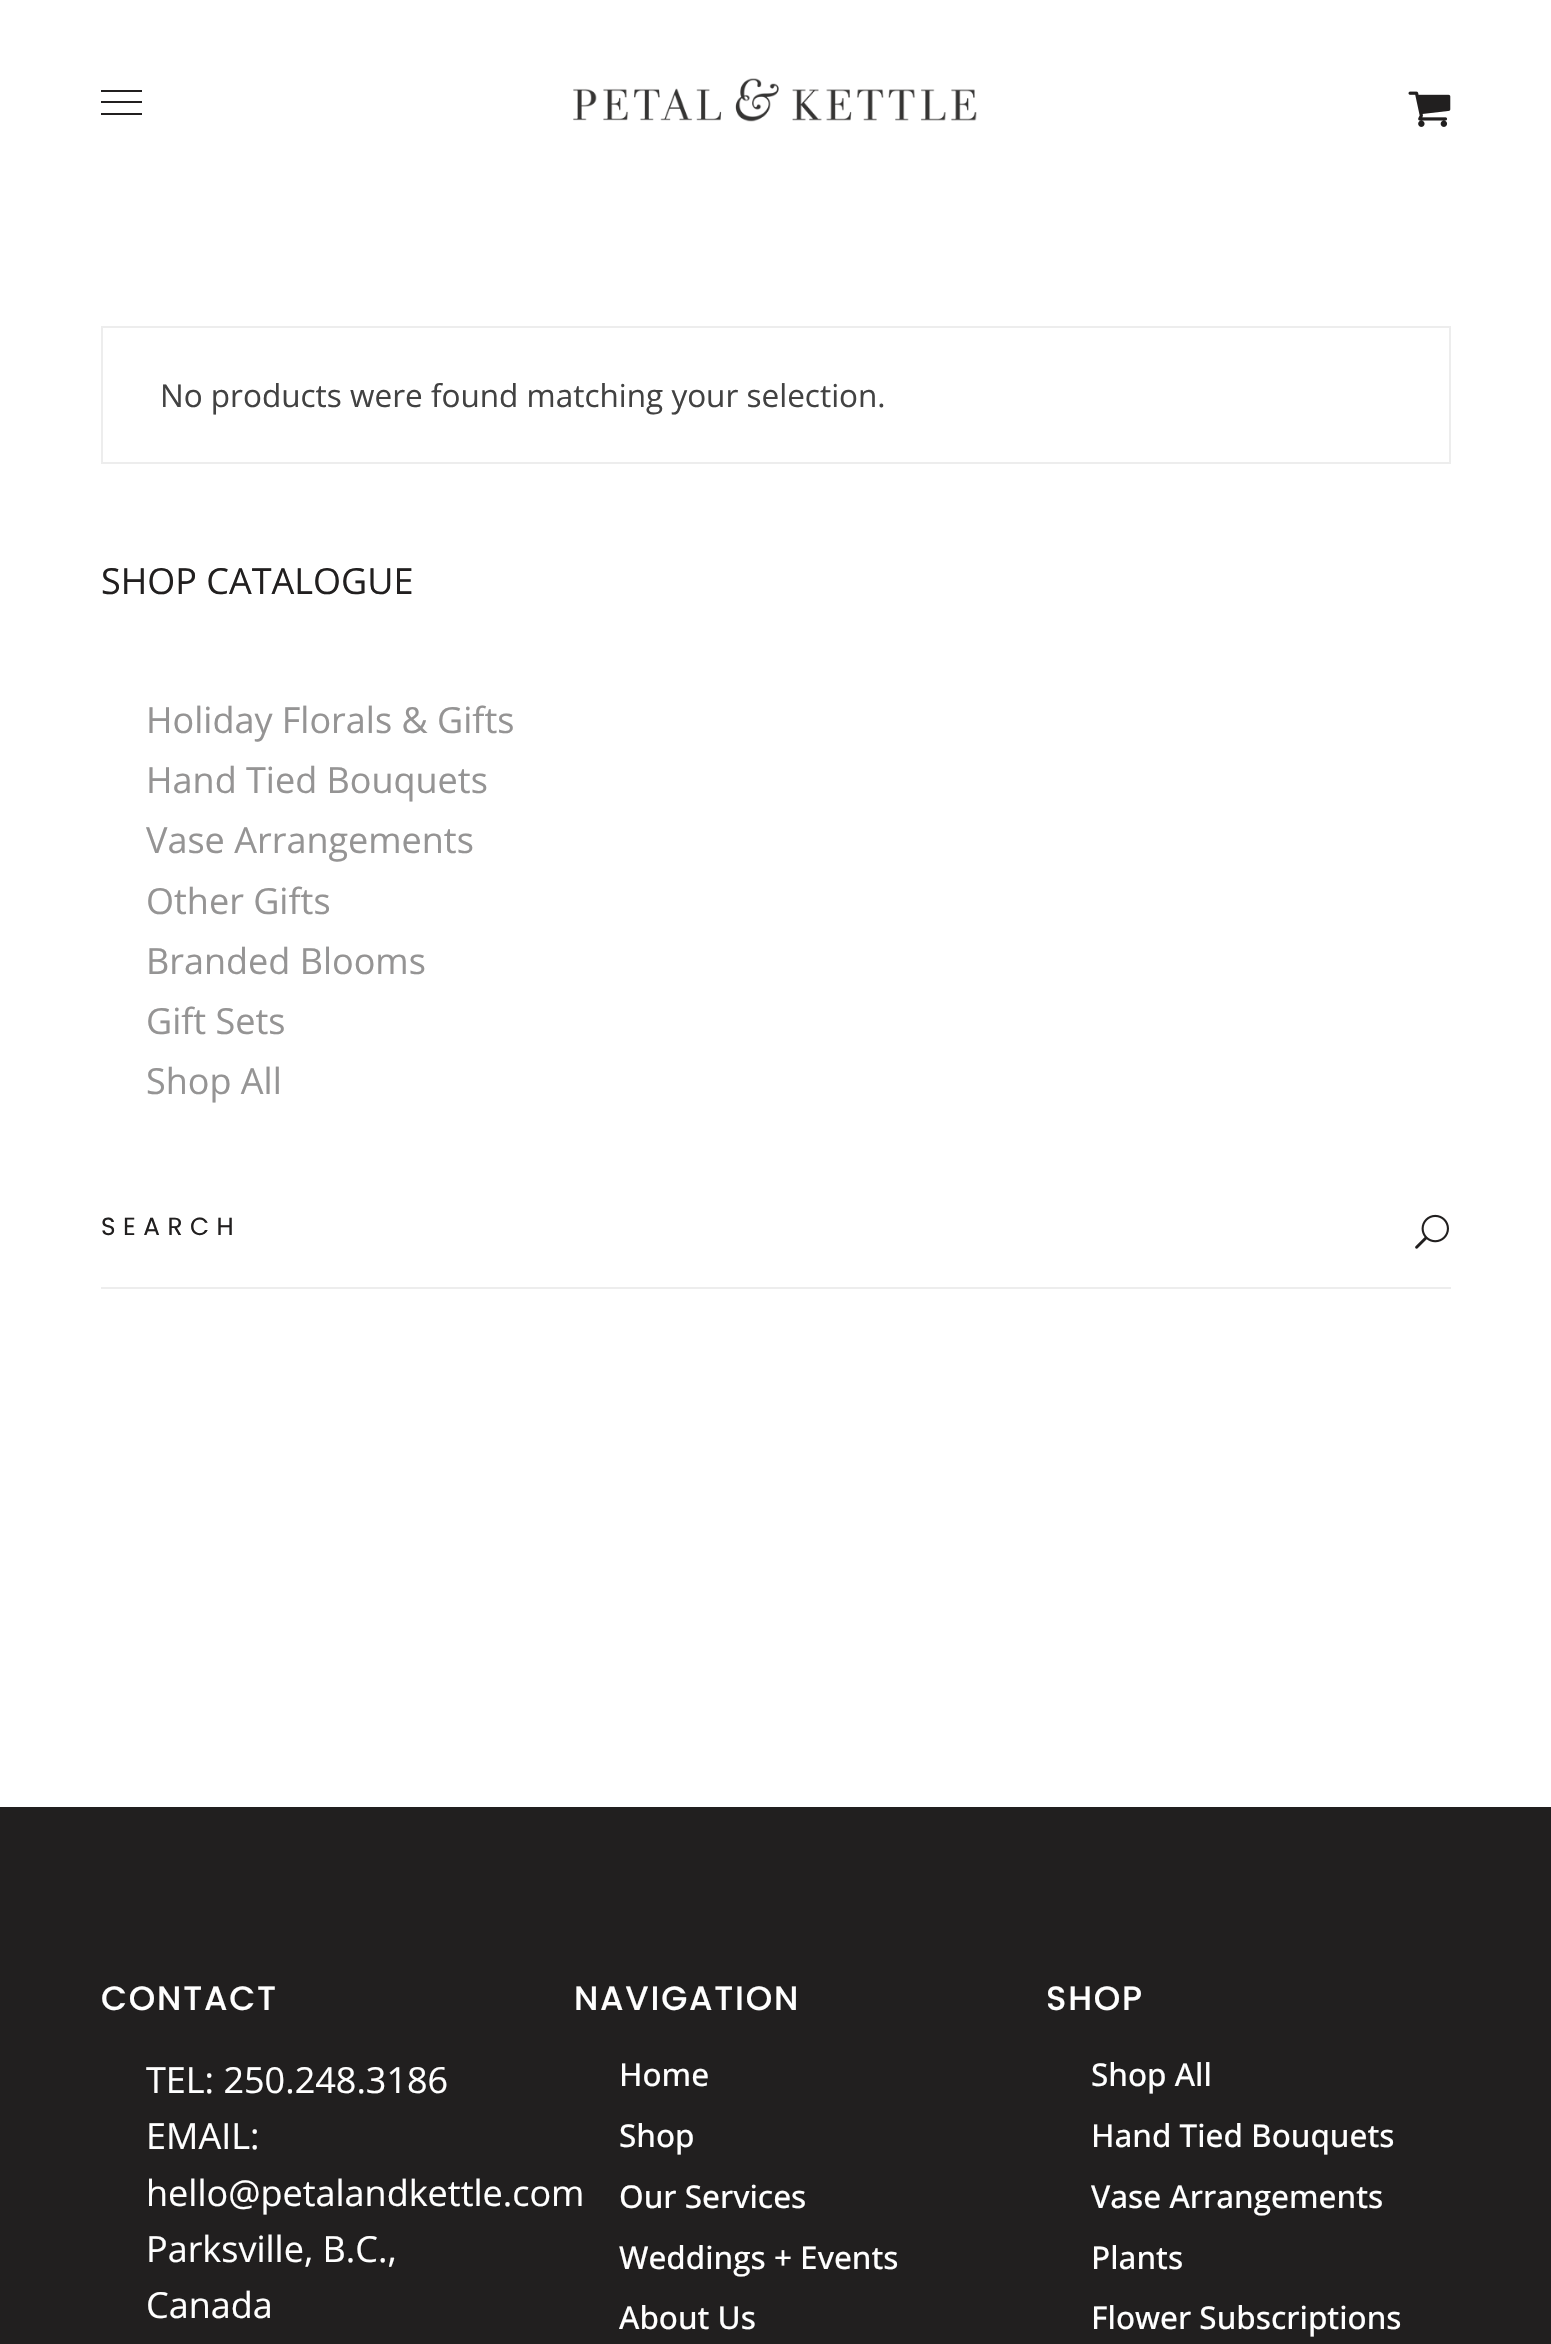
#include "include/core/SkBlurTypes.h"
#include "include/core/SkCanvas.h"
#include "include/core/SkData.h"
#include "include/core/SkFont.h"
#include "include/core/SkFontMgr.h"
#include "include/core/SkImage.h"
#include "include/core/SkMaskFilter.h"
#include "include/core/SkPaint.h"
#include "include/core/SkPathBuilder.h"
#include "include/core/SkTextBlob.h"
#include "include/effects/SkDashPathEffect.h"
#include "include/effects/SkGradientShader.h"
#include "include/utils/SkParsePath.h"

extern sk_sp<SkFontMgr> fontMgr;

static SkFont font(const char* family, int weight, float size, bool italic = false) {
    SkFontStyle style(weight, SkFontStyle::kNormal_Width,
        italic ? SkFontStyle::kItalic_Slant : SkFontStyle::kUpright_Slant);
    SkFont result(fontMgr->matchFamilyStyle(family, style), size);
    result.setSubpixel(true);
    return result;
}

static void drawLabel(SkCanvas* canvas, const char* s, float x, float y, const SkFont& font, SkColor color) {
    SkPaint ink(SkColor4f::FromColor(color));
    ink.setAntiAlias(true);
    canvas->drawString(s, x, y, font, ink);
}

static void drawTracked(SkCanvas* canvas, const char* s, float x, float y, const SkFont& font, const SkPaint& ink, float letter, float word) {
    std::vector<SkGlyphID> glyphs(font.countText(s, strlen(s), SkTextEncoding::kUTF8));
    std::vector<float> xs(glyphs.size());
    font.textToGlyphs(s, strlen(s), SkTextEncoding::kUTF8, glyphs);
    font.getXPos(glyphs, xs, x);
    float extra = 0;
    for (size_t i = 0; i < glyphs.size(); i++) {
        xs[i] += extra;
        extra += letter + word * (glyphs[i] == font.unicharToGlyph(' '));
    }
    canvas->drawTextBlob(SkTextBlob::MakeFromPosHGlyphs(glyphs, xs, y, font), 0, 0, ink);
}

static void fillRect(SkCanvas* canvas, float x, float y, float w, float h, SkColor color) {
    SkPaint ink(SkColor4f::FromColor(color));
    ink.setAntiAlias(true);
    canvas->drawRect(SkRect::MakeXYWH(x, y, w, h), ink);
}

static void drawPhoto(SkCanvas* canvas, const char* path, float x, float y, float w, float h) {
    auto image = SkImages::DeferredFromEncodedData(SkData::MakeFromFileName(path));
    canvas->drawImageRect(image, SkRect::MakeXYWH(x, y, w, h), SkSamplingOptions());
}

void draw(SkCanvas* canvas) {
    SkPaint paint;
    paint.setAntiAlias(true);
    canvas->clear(0xFFFFFFFF);
    fillRect(canvas, 101, 90, 41, 2, 0xFF211F1F);
    fillRect(canvas, 101, 101, 41, 2, 0xFF211F1F);
    fillRect(canvas, 101, 113, 41, 2, 0xFF211F1F);
    drawPhoto(canvas, "assets/img1.png", 573, 78, 404, 44);
    drawPhoto(canvas, "assets/img2.png", 1408, 91, 43, 36);
    paint.setStroke(true);
    paint.setStrokeWidth(2);
    paint.setColor(0xFFEDEDED);
    canvas->drawRect(SkRect::MakeXYWH(102, 327, 1348, 136), paint);
    SkFont font1 = font("Open Sans", 400, 31.5f);
    drawLabel(canvas, "No products were found matching your selection.", 160, 407, font1, 0xFF424242);
    SkFont font2 = font("Open Sans", 400, 36);
    drawLabel(canvas, "SHOP CATALOGUE", 101, 594, font2, 0xFF211F1F);
    drawLabel(canvas, "Holiday Florals & Gifts", 146, 733, font2, 0xFF959494);
    drawLabel(canvas, "Hand Tied Bouquets", 146, 793, font2, 0xFF959494);
    drawLabel(canvas, "Vase Arrangements", 146, 853, font2, 0xFF959494);
    drawLabel(canvas, "Other Gifts", 146, 914, font2, 0xFF959494);
    drawLabel(canvas, "Branded Blooms", 146, 974, font2, 0xFF959494);
    drawLabel(canvas, "Gift Sets", 146, 1034, font2, 0xFF959494);
    drawLabel(canvas, "Shop All", 146, 1094, font2, 0xFF959494);
    fillRect(canvas, 101, 1287, 1350, 2, 0xFFEDEDED);
    SkFont font3 = font("Poppins", 400, 24.75f);
    paint.setStroke(false);
    paint.setColor(0xFF211F1F);
    drawTracked(canvas, "SEARCH", 101, 1235, font3, paint, 7.5f, 0);
    drawPhoto(canvas, "assets/img3.png", 1415, 1214, 34, 35);
    fillRect(canvas, 0, 1807, 1551, 537, 0xFF211F1F);
    SkFont font4 = font("Poppins", 500, 33.75f);
    paint.setColor(0xFFFFFFFF);
    drawTracked(canvas, "CONTACT", 101, 2010, font4, paint, 1.75f, 0);
    drawLabel(canvas, "TEL: 250.248.3186", 146, 2093, font2, 0xFFFFFFFF);
    drawLabel(canvas, "EMAIL:", 146, 2149, font2, 0xFFFFFFFF);
    drawLabel(canvas, "hello@petalandkettle.com", 146, 2206, font2, 0xFFFFFFFF);
    drawLabel(canvas, "Parksville, B.C.,", 146, 2262, font2, 0xFFFFFFFF);
    drawLabel(canvas, "Canada", 146, 2318, font2, 0xFFFFFFFF);
    drawTracked(canvas, "NAVIGATION", 574, 2010, font4, paint, 1.75f, 0);
    SkFont font5 = font("Open Sans", 500, 31.5f);
    drawLabel(canvas, "Home", 619, 2086, font5, 0xFFFFFFFF);
    drawLabel(canvas, "Shop", 619, 2147, font5, 0xFFFFFFFF);
    drawLabel(canvas, "Our Services", 619, 2208, font5, 0xFFFFFFFF);
    drawLabel(canvas, "Weddings + Events", 619, 2269, font5, 0xFFFFFFFF);
    drawLabel(canvas, "About Us", 619, 2329, font5, 0xFFFFFFFF);
    drawTracked(canvas, "SHOP", 1046, 2010, font4, paint, 1.75f, 0);
    drawLabel(canvas, "Shop All", 1091, 2086, font5, 0xFFFFFFFF);
    drawLabel(canvas, "Hand Tied Bouquets", 1091, 2147, font5, 0xFFFFFFFF);
    drawLabel(canvas, "Vase Arrangements", 1091, 2208, font5, 0xFFFFFFFF);
    drawLabel(canvas, "Plants", 1091, 2269, font5, 0xFFFFFFFF);
    drawLabel(canvas, "Flower Subscriptions", 1091, 2329, font5, 0xFFFFFFFF);
}
